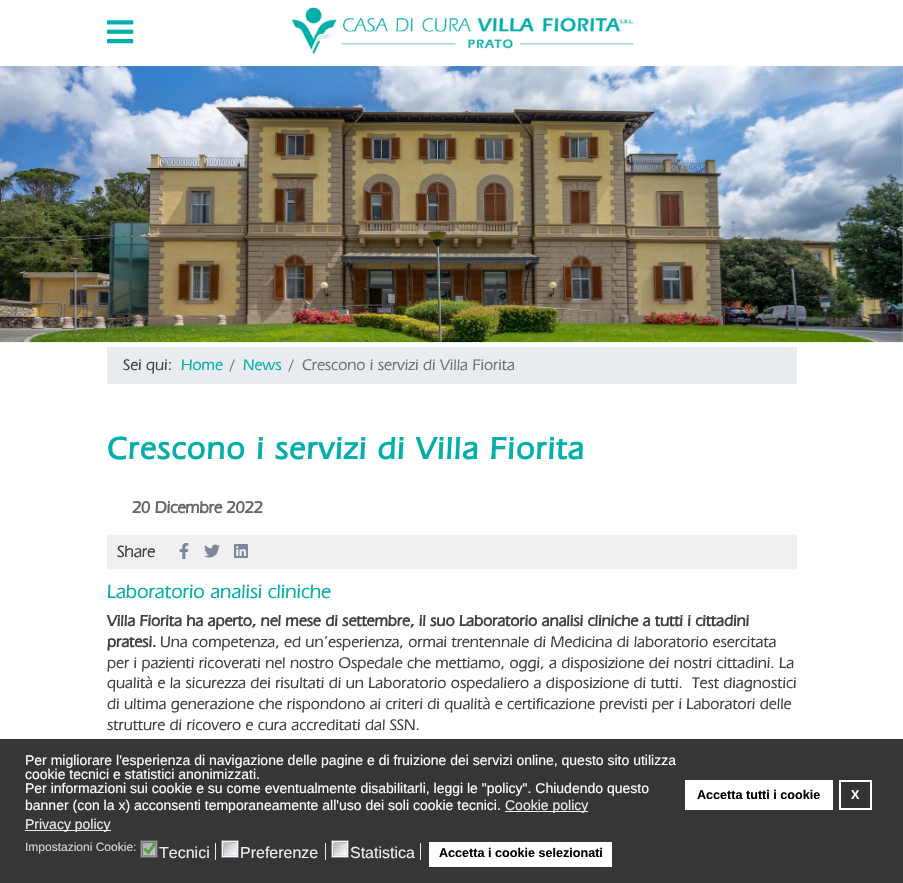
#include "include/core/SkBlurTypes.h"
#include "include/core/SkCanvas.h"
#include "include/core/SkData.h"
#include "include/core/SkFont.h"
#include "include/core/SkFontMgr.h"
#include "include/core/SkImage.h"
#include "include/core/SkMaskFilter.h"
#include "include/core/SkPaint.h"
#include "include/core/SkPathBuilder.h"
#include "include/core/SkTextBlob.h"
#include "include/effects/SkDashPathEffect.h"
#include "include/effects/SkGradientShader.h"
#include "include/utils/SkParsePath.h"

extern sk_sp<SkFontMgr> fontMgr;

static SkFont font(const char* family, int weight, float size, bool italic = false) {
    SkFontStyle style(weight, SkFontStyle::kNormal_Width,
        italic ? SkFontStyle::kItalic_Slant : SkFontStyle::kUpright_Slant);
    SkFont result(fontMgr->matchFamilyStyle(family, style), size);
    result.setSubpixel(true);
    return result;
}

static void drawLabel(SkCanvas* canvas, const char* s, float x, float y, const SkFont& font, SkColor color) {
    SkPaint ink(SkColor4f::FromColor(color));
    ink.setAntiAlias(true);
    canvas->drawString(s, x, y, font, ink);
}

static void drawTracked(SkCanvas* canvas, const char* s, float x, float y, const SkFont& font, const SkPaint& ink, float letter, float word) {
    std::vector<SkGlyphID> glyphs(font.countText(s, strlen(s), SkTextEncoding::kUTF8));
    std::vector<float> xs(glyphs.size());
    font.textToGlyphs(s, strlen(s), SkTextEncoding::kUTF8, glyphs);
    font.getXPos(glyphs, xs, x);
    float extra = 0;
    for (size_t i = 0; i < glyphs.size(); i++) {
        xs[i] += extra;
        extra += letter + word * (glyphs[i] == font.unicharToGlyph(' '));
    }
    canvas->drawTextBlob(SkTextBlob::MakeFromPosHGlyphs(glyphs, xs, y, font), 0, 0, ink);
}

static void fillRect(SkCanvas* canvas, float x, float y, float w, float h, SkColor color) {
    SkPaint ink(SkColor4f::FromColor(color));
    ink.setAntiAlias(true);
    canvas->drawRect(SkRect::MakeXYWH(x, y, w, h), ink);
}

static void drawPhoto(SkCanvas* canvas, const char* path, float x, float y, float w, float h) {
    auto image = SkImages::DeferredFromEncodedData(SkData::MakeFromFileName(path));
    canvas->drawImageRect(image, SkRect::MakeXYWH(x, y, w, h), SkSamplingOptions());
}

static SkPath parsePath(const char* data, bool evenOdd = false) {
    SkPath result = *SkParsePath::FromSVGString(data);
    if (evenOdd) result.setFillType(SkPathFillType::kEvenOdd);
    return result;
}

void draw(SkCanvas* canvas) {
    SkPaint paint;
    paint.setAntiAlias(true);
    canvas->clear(0xFFFFFFFF);
    drawPhoto(canvas, "assets/img1.png", 0, 66, 903, 275);
    drawPhoto(canvas, "assets/img2.png", 107, 20, 27, 24);
    drawPhoto(canvas, "assets/img3.png", 291, 7, 343, 47);
    paint.setColor(0x33000000);
    paint.setMaskFilter(SkMaskFilter::MakeBlur(kNormal_SkBlurStyle, 2.5f));
    canvas->drawRect(SkRect::MakeXYWH(0, 341, 903, 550), paint);
    paint.setMaskFilter(nullptr);
    fillRect(canvas, 0, 341, 903, 398, 0xFFFFFFFF);
    drawPhoto(canvas, "assets/img4.png", 0, 66, 903, 277);
    fillRect(canvas, 107, 347, 690, 37, 0xFFE9ECEF);
    SkFont font1 = font("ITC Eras", 500, 16);
    drawLabel(canvas, "Sei qui:", 123, 370, font1, 0xFF404040);
    drawLabel(canvas, "Home", 181, 370, font1, 0xFF02AFAA);
    drawLabel(canvas, "/", 230, 370, font1, 0xFF6C757D);
    drawLabel(canvas, "News", 243, 370, font1, 0xFF02AFAA);
    drawLabel(canvas, "/", 289, 370, font1, 0xFF6C757D);
    drawLabel(canvas, "Crescono i servizi di Villa Fiorita", 302, 370, font1, 0xFF6C757D);
    SkFont font2 = font("ITC Eras", 700, 32);
    paint.setColor(0xFF02AFAA);
    drawTracked(canvas, "Crescono i servizi di Villa Fiorita", 107, 459, font2, paint, 1.5f, 0);
    SkFont font3 = font("ITC Eras", 700, 17);
    paint.setColor(0xFF666666);
    drawTracked(canvas, "20 Dicembre 2022", 132, 513, font3, paint, -0.25f, 0);
    fillRect(canvas, 107, 535, 690, 34, 0xFFF0F0F0);
    SkFont font4 = font("ITC Eras", 500, 17);
    paint.setColor(0xFF404040);
    drawTracked(canvas, "Share", 117, 557, font4, paint, -0.25f, 0);
    drawPhoto(canvas, "assets/img5.png", 179, 543, 10, 16);
    drawPhoto(canvas, "assets/img6.png", 204, 544, 16, 14);
    drawPhoto(canvas, "assets/img7.png", 234, 544, 14, 14);
    SkFont font5 = font("ITC Eras", 500, 20);
    drawLabel(canvas, "Laboratorio analisi cliniche", 107, 598, font5, 0xFF02AFAA);
    SkFont font6 = font("ITC Eras", 700, 16);
    drawLabel(canvas, "Villa Fiorita ha aperto, nel mese di settembre, il suo Laboratorio analisi cliniche a tutti i cittadini", 107, 626, font6, 0xFF404040);
    drawLabel(canvas, "pratesi.", 107, 647, font6, 0xFF404040);
    drawLabel(canvas, "Una competenza, ed un’esperienza, ormai trentennale di Medicina di laboratorio esercitata", 160, 647, font1, 0xFF404040);
    drawLabel(canvas, "per i pazienti ricoverati nel nostro Ospedale che mettiamo, oggi, a disposizione dei nostri cittadini. La", 107, 668, font1, 0xFF404040);
    drawLabel(canvas, "qualità e la sicurezza dei risultati di un Laboratorio ospedaliero a disposizione di tutti.  Test diagnostici", 107, 688, font1, 0xFF404040);
    drawLabel(canvas, "di ultima generazione che rispondono ai criteri di qualità e certificazione previsti per i Laboratori delle", 107, 709, font1, 0xFF404040);
    drawLabel(canvas, "strutture di ricovero e cura accreditati dal SSN.", 107, 730, font1, 0xFF404040);
    fillRect(canvas, 0, 739, 903, 144, 0xFF363636);
    SkFont font7 = font("Liberation Sans", 400, 14);
    drawLabel(canvas, "Per migliorare l'esperienza di navigazione delle pagine e di fruizione dei servizi online, questo sito utilizza", 25, 765, font7, 0xFFFFFFFF);
    drawLabel(canvas, "cookie tecnici e statistici anonimizzati.", 25, 779, font7, 0xFFFFFFFF);
    drawLabel(canvas, "Per informazioni sui cookie e su come eventualmente disabilitarli, leggi le \"policy\". Chiudendo questo", 25, 793, font7, 0xFFFFFFFF);
    drawLabel(canvas, "banner (con la x) acconsenti temporaneamente all'uso dei soli cookie tecnici.", 25, 810, font7, 0xFFFFFFFF);
    fillRect(canvas, 505, 811, 83, 1, 0xFFEBEBEB);
    drawLabel(canvas, "Cookie policy", 505, 810, font7, 0xFFEBEBEB);
    fillRect(canvas, 25, 830, 86, 1, 0xFFEBEBEB);
    drawLabel(canvas, "Privacy policy", 25, 829, font7, 0xFFEBEBEB);
    fillRect(canvas, 685, 780, 148, 30, 0xFFFFFFFF);
    SkFont font8 = font("Liberation Sans", 700, 12.6f);
    drawLabel(canvas, "Accetta tutti i cookie", 697, 799, font8, 0xFF000000);
    paint.setColor(0xFF333333);
    canvas->drawRect(SkRect::MakeXYWH(840, 781, 31, 28), paint);
    paint.setStroke(true);
    paint.setStrokeWidth(2);
    paint.setColor(0xFFFFFFFF);
    canvas->drawRect(SkRect::MakeXYWH(840, 781, 31, 28), paint);
    drawLabel(canvas, "X", 851, 799, font8, 0xFFFFFFFF);
    SkFont font9 = font("Liberation Sans", 400, 12);
    drawLabel(canvas, "Impostazioni Cookie:", 25, 851, font9, 0xFFD7D7D7);
    paint.setStroke(false);
    paint.setColor(0xFF9B9B9B);
    canvas->drawRoundRect(SkRect::MakeXYWH(140.5f, 840.5f, 17, 17), 0.5f, 0.5f, paint);
    paint.setStroke(true);
    paint.setStrokeWidth(1);
    paint.setColor(0xFF5B5B5B);
    canvas->drawRoundRect(SkRect::MakeXYWH(140.5f, 840.5f, 17, 17), 0.5f, 0.5f, paint);
    drawPhoto(canvas, "assets/img8.png", 142, 842, 14, 14);
    paint.setColor(0xFF898A8A);
    canvas->drawPath(parsePath("M155.5 842.5V849C155.5 857.5 157.5 855.5 149 855.5H142.5"), paint);
    paint.setColor(0xFF757575);
    canvas->drawPath(parsePath("M142.5 855.5V849C142.5 840.5 140.5 842.5 149 842.5H155.5"), paint);
    fillRect(canvas, 215, 843, 1, 17, 0xFFEBEBEB);
    SkFont font10 = font("Liberation Sans", 400, 16);
    drawLabel(canvas, "Tecnici", 159, 858, font10, 0xFFEBEBEB);
    paint.setStroke(false);
    paint.setColor(0xFFFFFFFF);
    canvas->drawRoundRect(SkRect::MakeXYWH(221.5f, 840.5f, 17, 17), 0.5f, 0.5f, paint);
    paint.setStroke(true);
    paint.setColor(0xFF808080);
    canvas->drawRoundRect(SkRect::MakeXYWH(221.5f, 840.5f, 17, 17), 0.5f, 0.5f, paint);
    paint.setStroke(false);
    {
        const SkColor colors[] = {0xFFB1B6BE, 0xFFFFFFFF};
        const float stops[] = {0, 1};
        const SkPoint ends[] = {{224, 843}, {236, 855}};
        paint.setShader(SkGradientShader::MakeLinear(ends, colors, stops, 2, SkTileMode::kClamp));
        paint.setAlpha(255);
    }
    canvas->drawRect(SkRect::MakeXYWH(224, 843, 12, 12), paint);
    paint.setStroke(true);
    paint.setShader(nullptr);
    paint.setColor(0xFFDCDDDE);
    canvas->drawPath(parsePath("M236.5 842.5V849C236.5 857.5 238.5 855.5 230 855.5H223.5"), paint);
    paint.setColor(0xFFB3B3B3);
    canvas->drawPath(parsePath("M223.5 855.5V849C223.5 840.5 221.5 842.5 230 842.5H236.5"), paint);
    fillRect(canvas, 325, 843, 1, 17, 0xFFEBEBEB);
    drawLabel(canvas, "Preferenze", 240, 858, font10, 0xFFEBEBEB);
    paint.setStroke(false);
    paint.setColor(0xFFFFFFFF);
    canvas->drawRoundRect(SkRect::MakeXYWH(331.5f, 840.5f, 17, 17), 0.5f, 0.5f, paint);
    paint.setStroke(true);
    paint.setColor(0xFF808080);
    canvas->drawRoundRect(SkRect::MakeXYWH(331.5f, 840.5f, 17, 17), 0.5f, 0.5f, paint);
    paint.setStroke(false);
    {
        const SkColor colors[] = {0xFFB1B6BE, 0xFFFFFFFF};
        const float stops[] = {0, 1};
        const SkPoint ends[] = {{334, 843}, {346, 855}};
        paint.setShader(SkGradientShader::MakeLinear(ends, colors, stops, 2, SkTileMode::kClamp));
        paint.setAlpha(255);
    }
    canvas->drawRect(SkRect::MakeXYWH(334, 843, 12, 12), paint);
    paint.setStroke(true);
    paint.setShader(nullptr);
    paint.setColor(0xFFDCDDDE);
    canvas->drawPath(parsePath("M346.5 842.5V849C346.5 857.5 348.5 855.5 340 855.5H333.5"), paint);
    paint.setColor(0xFFB3B3B3);
    canvas->drawPath(parsePath("M333.5 855.5V849C333.5 840.5 331.5 842.5 340 842.5H346.5"), paint);
    fillRect(canvas, 420, 843, 1, 17, 0xFFEBEBEB);
    drawLabel(canvas, "Statistica", 350, 858, font10, 0xFFEBEBEB);
    fillRect(canvas, 429, 842, 183, 25, 0xFFFFFFFF);
    drawLabel(canvas, "Accetta i cookie selezionati", 439, 857, font8, 0xFF000000);
}
